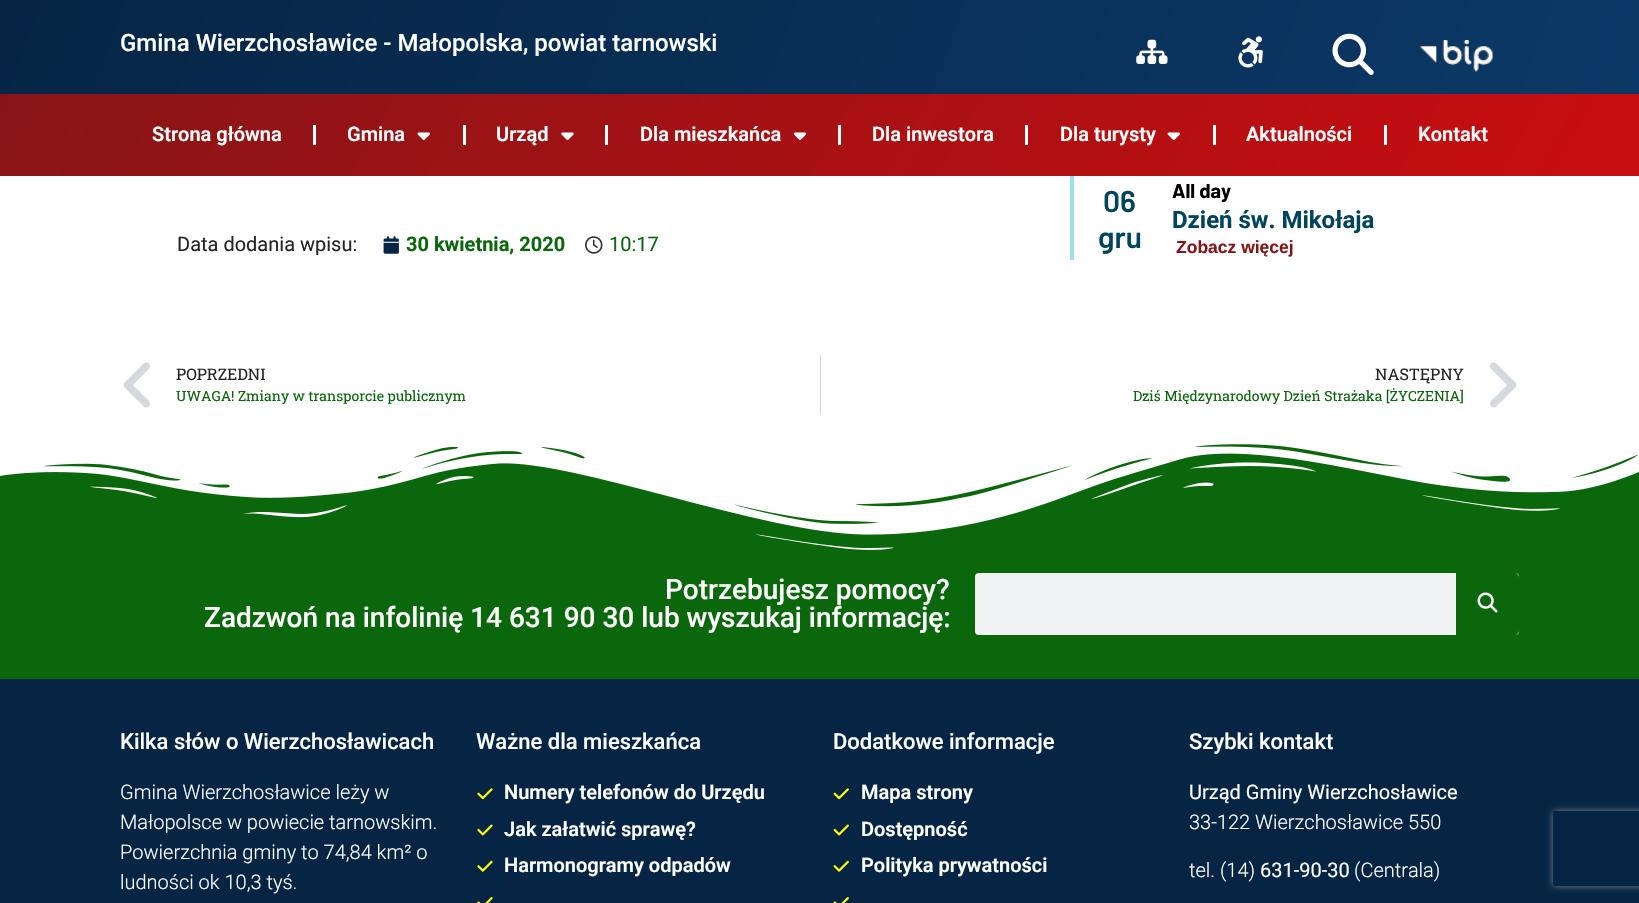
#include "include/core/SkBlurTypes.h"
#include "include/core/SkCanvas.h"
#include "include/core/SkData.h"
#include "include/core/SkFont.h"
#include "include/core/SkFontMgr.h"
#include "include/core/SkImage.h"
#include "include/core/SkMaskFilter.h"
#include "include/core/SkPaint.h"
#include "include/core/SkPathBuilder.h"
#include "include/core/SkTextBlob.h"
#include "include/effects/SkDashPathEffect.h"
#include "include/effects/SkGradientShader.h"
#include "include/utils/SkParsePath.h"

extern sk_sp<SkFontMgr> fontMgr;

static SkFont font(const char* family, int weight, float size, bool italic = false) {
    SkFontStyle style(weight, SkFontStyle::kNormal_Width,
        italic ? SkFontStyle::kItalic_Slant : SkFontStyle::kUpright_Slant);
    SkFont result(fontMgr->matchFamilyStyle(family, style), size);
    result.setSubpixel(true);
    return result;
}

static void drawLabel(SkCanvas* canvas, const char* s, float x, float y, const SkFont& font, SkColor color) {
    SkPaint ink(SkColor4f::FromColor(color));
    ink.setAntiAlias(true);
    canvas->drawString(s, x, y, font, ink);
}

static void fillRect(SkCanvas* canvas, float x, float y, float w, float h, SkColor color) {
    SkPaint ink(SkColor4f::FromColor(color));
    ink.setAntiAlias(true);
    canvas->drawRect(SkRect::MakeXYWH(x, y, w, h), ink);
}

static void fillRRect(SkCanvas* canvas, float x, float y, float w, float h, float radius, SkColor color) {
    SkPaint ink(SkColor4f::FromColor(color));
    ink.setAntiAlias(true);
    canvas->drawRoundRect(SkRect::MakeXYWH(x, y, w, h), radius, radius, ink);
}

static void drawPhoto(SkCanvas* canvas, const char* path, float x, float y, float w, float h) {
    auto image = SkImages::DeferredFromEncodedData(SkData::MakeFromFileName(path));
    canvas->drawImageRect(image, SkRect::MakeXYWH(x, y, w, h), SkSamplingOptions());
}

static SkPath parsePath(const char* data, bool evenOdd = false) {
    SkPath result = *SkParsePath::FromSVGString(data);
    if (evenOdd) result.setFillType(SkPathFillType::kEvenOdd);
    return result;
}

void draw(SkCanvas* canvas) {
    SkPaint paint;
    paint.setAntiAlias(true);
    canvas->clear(0xFFFFFFFF);
    {
        const SkColor colors[] = {0xFF062545, 0xFF0B3967};
        const float stops[] = {0, 1};
        const SkPoint ends[] = {{78, -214}, {1562, 326}};
        paint.setShader(SkGradientShader::MakeLinear(ends, colors, stops, 2, SkTileMode::kClamp));
        paint.setAlpha(255);
    }
    canvas->drawRect(SkRect::MakeXYWH(0, 0, 1639, 94), paint);
    SkFont font1 = font("Roboto", 500, 24);
    drawLabel(canvas, "Gmina Wierzchosławice - Małopolska, powiat tarnowski", 120, 51, font1, 0xFFFFFFFF);
    drawPhoto(canvas, "assets/img1.png", 1136, 39, 32, 25);
    drawPhoto(canvas, "assets/img2.png", 1238, 36, 25, 32);
    drawPhoto(canvas, "assets/img3.png", 1332, 33, 42, 42);
    drawPhoto(canvas, "assets/img4.png", 1419, 40, 74, 32);
    fillRect(canvas, 1070, 175, 4, 85, 0xFF9CDFF3);
    {
        const SkColor colors[] = {0xFF871517, 0xFFC90D10};
        const float stops[] = {0, 1};
        const SkPoint ends[] = {{187, -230}, {1453, 500}};
        paint.setShader(SkGradientShader::MakeLinear(ends, colors, stops, 2, SkTileMode::kClamp));
        paint.setAlpha(255);
    }
    canvas->drawRect(SkRect::MakeXYWH(0, 94, 1639, 82), paint);
    SkFont font2 = font("Roboto", 600, 20);
    drawLabel(canvas, "Strona główna", 152, 141, font2, 0xFFFFFFFF);
    fillRect(canvas, 313, 125, 3, 20, 0xFFFFFFFF);
    drawLabel(canvas, "Gmina", 347, 141, font2, 0xFFFFFFFF);
    drawPhoto(canvas, "assets/img5.png", 417, 132, 13, 8);
    fillRect(canvas, 463, 125, 3, 20, 0xFFFFFFFF);
    drawLabel(canvas, "Urząd", 496, 141, font2, 0xFFFFFFFF);
    drawPhoto(canvas, "assets/img6.png", 561, 132, 13, 8);
    fillRect(canvas, 605, 125, 3, 20, 0xFFFFFFFF);
    drawLabel(canvas, "Dla mieszkańca", 640, 141, font2, 0xFFFFFFFF);
    drawPhoto(canvas, "assets/img7.png", 793, 132, 14, 8);
    fillRect(canvas, 838, 125, 3, 20, 0xFFFFFFFF);
    drawLabel(canvas, "Dla inwestora", 872, 141, font2, 0xFFFFFFFF);
    fillRect(canvas, 1025, 125, 3, 20, 0xFFFFFFFF);
    drawLabel(canvas, "Dla turysty", 1060, 141, font2, 0xFFFFFFFF);
    drawPhoto(canvas, "assets/img8.png", 1167, 132, 13, 8);
    fillRect(canvas, 1213, 125, 3, 20, 0xFFFFFFFF);
    drawLabel(canvas, "Aktualności", 1246, 141, font2, 0xFFFFFFFF);
    fillRect(canvas, 1384, 125, 3, 20, 0xFFFFFFFF);
    drawLabel(canvas, "Kontakt", 1418, 141, font2, 0xFFFFFFFF);
    SkFont font3 = font("Roboto", 400, 20);
    drawLabel(canvas, "Data dodania wpisu:", 177, 251, font3, 0xFF252525);
    drawPhoto(canvas, "assets/img9.png", 383, 236, 16, 18);
    SkFont font4 = font("Roboto", 700, 20);
    drawLabel(canvas, "30 kwietnia, 2020", 406, 251, font4, 0xFF0B670B);
    drawPhoto(canvas, "assets/img10.png", 585, 236, 18, 18);
    drawLabel(canvas, "10:17", 609, 251, font3, 0xFF0B670B);
    SkFont font5 = font("Barlow", 600, 30);
    drawLabel(canvas, "06", 1103, 212, font5, 0xFF00445E);
    drawLabel(canvas, "gru", 1098, 248, font5, 0xFF00445E);
    SkFont font6 = font("Barlow", 700, 20);
    drawLabel(canvas, "All day", 1172, 198, font6, 0xFF000000);
    SkFont font7 = font("Roboto", 700, 24);
    drawLabel(canvas, "Dzień św. Mikołaja", 1172, 228, font7, 0xFF00445E);
    SkFont font8 = font("Liberation Sans", 700, 17.5f);
    drawLabel(canvas, "Zobacz więcej", 1176, 253, font8, 0xFF871517);
    drawPhoto(canvas, "assets/img11.png", 123, 362, 27, 46);
    SkFont font9 = font("Roboto Slab", 400, 16);
    drawLabel(canvas, "POPRZEDNI", 176, 380, font9, 0xFF252525);
    SkFont font10 = font("Roboto Slab", 400, 14);
    drawLabel(canvas, "UWAGA! Zmiany w transporcie publicznym", 176, 401, font10, 0xFF0B670B);
    fillRect(canvas, 820, 355, 1, 60, 0xFFD5D8DC);
    drawLabel(canvas, "NASTĘPNY", 1375, 380, font9, 0xFF252525);
    drawLabel(canvas, "Dziś Międzynarodowy Dzień Strażaka [ŻYCZENIA]", 1133, 401, font10, 0xFF0B670B);
    drawPhoto(canvas, "assets/img12.png", 1490, 362, 27, 46);
    fillRect(canvas, 0, 444, 1639, 235, 0xFF0B670B);
    drawPhoto(canvas, "assets/img13.png", 0, 429, 1639, 121);
    SkFont font11 = font("Roboto", 500, 28);
    drawLabel(canvas, "Potrzebujesz pomocy?", 665, 599, font11, 0xFFFFFFFF);
    drawLabel(canvas, "Zadzwoń na infolinię 14 631 90 30 lub wyszukaj informację:", 204, 627, font11, 0xFFFFFFFF);
    fillRRect(canvas, 975, 573, 544, 62, 4, 0xFFF1F2F3);
    paint.setShader(nullptr);
    paint.setColor(0xFF0B670B);
    canvas->drawPath(parsePath("M1456 573H1515C1517 573 1519 575 1519 577V631C1519 633 1517 635 1515 635H1456Z"), paint);
    drawPhoto(canvas, "assets/img14.png", 1477, 592, 21, 21);
    fillRect(canvas, 0, 679, 1639, 224, 0xFF062545);
    SkFont font12 = font("Roboto", 500, 22);
    drawLabel(canvas, "Kilka słów o Wierzchosławicach", 120, 749, font12, 0xFFFFFFFF);
    SkFont font13 = font("Roboto", 300, 20);
    drawLabel(canvas, "Gmina Wierzchosławice leży w", 120, 799, font13, 0xFFFFFFFF);
    drawLabel(canvas, "Małopolsce w powiecie tarnowskim.", 120, 829, font13, 0xFFFFFFFF);
    drawLabel(canvas, "Powierzchnia gminy to 74,84 km² o", 120, 859, font13, 0xFFFFFFFF);
    drawLabel(canvas, "ludności ok 10,3 tyś.", 120, 889, font13, 0xFFFFFFFF);
    drawLabel(canvas, "Ważne dla mieszkańca", 476, 749, font12, 0xFFFFFFFF);
    drawPhoto(canvas, "assets/img15.png", 477, 788, 16, 12);
    drawLabel(canvas, "Numery telefonów do Urzędu", 504, 799, font2, 0xFFFFFFFF);
    drawPhoto(canvas, "assets/img16.png", 477, 824, 16, 12);
    drawLabel(canvas, "Jak załatwić sprawę?", 504, 836, font2, 0xFFFFFFFF);
    drawPhoto(canvas, "assets/img17.png", 477, 860, 16, 12);
    drawLabel(canvas, "Harmonogramy odpadów", 504, 872, font2, 0xFFFFFFFF);
    drawPhoto(canvas, "assets/img18.png", 477, 897, 16, 6);
    drawLabel(canvas, "Dodatkowe informacje", 833, 749, font12, 0xFFFFFFFF);
    drawPhoto(canvas, "assets/img19.png", 833, 788, 16, 12);
    drawLabel(canvas, "Mapa strony", 861, 799, font2, 0xFFFFFFFF);
    drawPhoto(canvas, "assets/img20.png", 833, 824, 16, 12);
    drawLabel(canvas, "Dostępność", 861, 836, font2, 0xFFFFFFFF);
    drawPhoto(canvas, "assets/img21.png", 833, 860, 16, 12);
    drawLabel(canvas, "Polityka prywatności", 861, 872, font2, 0xFFFFFFFF);
    drawPhoto(canvas, "assets/img22.png", 833, 897, 16, 6);
    drawLabel(canvas, "Szybki kontakt", 1189, 749, font12, 0xFFFFFFFF);
    drawLabel(canvas, "Urząd Gminy Wierzchosławice", 1189, 799, font3, 0xFFFFFFFF);
    drawLabel(canvas, "33-122 Wierzchosławice 550", 1189, 829, font13, 0xFFFFFFFF);
    drawLabel(canvas, "tel. (14)", 1189, 877, font13, 0xFFFFFFFF);
    drawLabel(canvas, "631-90-30", 1260, 877, font3, 0xFFFFFFFF);
    drawLabel(canvas, "(Centrala)", 1354, 877, font13, 0xFFFFFFFF);
    canvas->save();
    canvas->clipPath(parsePath("M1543 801H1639V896H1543ZM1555.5 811H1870.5C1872 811 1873 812 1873 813.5V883.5C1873 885 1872 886 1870.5 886H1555.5C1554 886 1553 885 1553 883.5V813.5C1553 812 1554 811 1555.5 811Z", true), true);
    paint.setColor(0xFF808080);
    paint.setMaskFilter(SkMaskFilter::MakeBlur(kNormal_SkBlurStyle, 3));
    canvas->drawRoundRect(SkRect::MakeXYWH(1553, 811, 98, 75), 2.5f, 2.5f, paint);
    paint.setMaskFilter(nullptr);
    canvas->restore();
}
